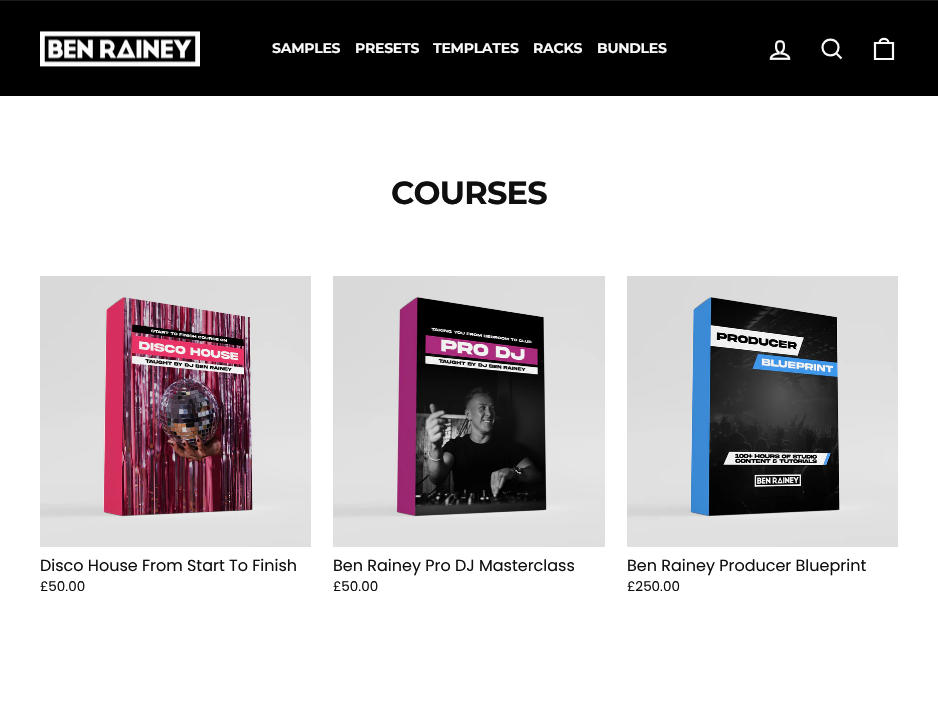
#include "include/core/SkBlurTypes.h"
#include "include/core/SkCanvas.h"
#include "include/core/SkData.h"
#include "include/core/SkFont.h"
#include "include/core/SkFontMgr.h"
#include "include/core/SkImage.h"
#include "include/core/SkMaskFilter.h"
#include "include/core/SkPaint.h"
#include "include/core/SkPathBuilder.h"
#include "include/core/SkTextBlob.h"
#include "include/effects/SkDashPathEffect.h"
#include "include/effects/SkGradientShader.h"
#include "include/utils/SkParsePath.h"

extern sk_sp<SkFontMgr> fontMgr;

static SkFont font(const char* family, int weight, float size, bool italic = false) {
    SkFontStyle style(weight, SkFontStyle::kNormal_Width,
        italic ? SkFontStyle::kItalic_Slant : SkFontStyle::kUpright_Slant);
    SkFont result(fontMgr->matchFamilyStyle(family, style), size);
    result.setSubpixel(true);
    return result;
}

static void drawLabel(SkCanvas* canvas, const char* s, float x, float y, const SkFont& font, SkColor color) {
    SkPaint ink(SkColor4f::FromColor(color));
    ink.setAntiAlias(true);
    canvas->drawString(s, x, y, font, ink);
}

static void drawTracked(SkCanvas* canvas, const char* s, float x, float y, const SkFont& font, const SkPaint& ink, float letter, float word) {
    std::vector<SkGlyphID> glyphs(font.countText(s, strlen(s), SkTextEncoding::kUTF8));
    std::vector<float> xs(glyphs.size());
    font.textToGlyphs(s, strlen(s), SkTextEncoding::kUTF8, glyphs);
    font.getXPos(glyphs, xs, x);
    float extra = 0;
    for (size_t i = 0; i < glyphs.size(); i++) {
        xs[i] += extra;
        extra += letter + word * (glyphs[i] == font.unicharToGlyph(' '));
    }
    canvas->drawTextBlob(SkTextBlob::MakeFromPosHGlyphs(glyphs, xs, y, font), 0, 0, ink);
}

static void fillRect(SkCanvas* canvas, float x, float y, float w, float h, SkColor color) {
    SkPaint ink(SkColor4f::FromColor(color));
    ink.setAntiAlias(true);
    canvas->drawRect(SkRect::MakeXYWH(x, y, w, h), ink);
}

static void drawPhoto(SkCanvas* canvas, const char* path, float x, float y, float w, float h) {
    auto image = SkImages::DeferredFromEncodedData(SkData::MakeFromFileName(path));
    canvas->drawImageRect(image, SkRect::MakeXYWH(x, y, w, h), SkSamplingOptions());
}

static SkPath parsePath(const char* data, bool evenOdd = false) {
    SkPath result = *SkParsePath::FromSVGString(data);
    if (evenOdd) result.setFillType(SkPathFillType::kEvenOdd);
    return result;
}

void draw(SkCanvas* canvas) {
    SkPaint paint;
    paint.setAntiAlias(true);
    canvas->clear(0xFFFFFFFF);
    fillRect(canvas, 0, 1, 938, 95, 0xFF000000);
    fillRect(canvas, 0, 0, 938, 1, 0xFF191919);
    drawPhoto(canvas, "assets/img1.png", 40, 31, 160, 36);
    SkFont font1 = font("Montserrat", 700, 14);
    paint.setColor(0xFFF9F9F9);
    drawTracked(canvas, "SAMPLES", 272, 53, font1, paint, -0.25f, 0);
    drawTracked(canvas, "PRESETS", 355, 53, font1, paint, -0.25f, 0);
    drawTracked(canvas, "TEMPLATES", 433, 53, font1, paint, -0.25f, 0);
    drawTracked(canvas, "RACKS", 533, 53, font1, paint, -0.25f, 0);
    drawTracked(canvas, "BUNDLES", 597, 53, font1, paint, -0.25f, 0);
    drawPhoto(canvas, "assets/img2.png", 769, 40, 22, 20);
    paint.setStroke(true);
    paint.setStrokeWidth(2.2f);
    canvas->drawPath(parsePath("M838.5 47.5C838.5 58 822.5 58 822.5 47.5C822.5 37 838.5 37 838.5 47.5ZM841.5 58.5L836.5 53.5"), paint);
    canvas->drawPath(parsePath("M875 43H893V59H875ZM879.5 43C879.5 37.5 888.5 37.5 888.5 43"), paint);
    SkFont font2 = font("Montserrat", 700, 32);
    paint.setStroke(false);
    paint.setColor(0xFF0F0F0F);
    drawTracked(canvas, "COURSES", 391, 204, font2, paint, -0.75f, 0);
    drawPhoto(canvas, "assets/img3.png", 40, 276, 271, 271);
    SkFont font3 = font("Poppins", 400, 16);
    drawLabel(canvas, "Disco House From Start To Finish", 40, 571, font3, 0xFF0F0F0F);
    SkFont font4 = font("Poppins", 400, 13.5f);
    drawLabel(canvas, "£50.00", 40, 591, font4, 0xFF0F0F0F);
    drawPhoto(canvas, "assets/img4.png", 333, 276, 272, 271);
    drawLabel(canvas, "Ben Rainey Pro DJ Masterclass", 333, 571, font3, 0xFF0F0F0F);
    drawLabel(canvas, "£50.00", 333, 591, font4, 0xFF0F0F0F);
    drawPhoto(canvas, "assets/img5.png", 627, 276, 271, 271);
    drawLabel(canvas, "Ben Rainey Producer Blueprint", 627, 571, font3, 0xFF0F0F0F);
    drawLabel(canvas, "£250.00", 627, 591, font4, 0xFF0F0F0F);
}
